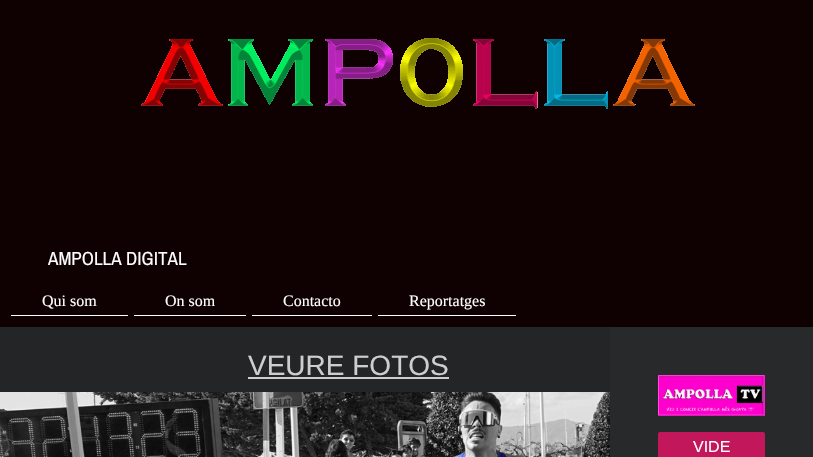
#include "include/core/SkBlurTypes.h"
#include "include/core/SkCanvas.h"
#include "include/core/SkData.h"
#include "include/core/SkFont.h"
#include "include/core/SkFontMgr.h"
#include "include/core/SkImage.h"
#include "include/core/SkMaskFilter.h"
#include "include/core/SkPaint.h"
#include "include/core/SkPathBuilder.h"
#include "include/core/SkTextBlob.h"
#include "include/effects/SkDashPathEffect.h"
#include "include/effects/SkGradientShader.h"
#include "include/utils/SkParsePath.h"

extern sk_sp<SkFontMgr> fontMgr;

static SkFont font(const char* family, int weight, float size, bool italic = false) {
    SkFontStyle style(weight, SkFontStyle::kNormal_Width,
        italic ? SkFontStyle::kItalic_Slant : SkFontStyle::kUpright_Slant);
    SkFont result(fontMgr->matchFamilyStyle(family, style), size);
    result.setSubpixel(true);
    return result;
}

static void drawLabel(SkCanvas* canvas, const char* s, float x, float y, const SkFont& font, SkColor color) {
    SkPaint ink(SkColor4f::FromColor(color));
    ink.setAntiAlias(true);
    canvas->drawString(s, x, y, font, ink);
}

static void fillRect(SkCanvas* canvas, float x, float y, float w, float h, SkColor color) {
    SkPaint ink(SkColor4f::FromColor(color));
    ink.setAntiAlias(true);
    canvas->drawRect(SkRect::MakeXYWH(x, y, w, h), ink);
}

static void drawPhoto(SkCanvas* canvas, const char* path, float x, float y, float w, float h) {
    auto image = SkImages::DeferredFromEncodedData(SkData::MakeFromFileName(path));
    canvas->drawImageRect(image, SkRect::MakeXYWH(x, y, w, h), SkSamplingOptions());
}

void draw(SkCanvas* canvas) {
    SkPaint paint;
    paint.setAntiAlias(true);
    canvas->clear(0xFF0F0101);
    drawPhoto(canvas, "assets/img1.png", 141, 38, 554, 71);
    SkFont font1 = font("Archivo Narrow", 400, 19);
    drawLabel(canvas, "AMPOLLA DIGITAL", 48, 265, font1, 0xFFFFFFFF);
    fillRect(canvas, 11, 315, 117, 1, 0xFFFFFFFF);
    SkFont font2 = font("Liberation Serif", 400, 16);
    drawLabel(canvas, "Qui som", 42, 306, font2, 0xFFFFFFFF);
    fillRect(canvas, 134, 315, 112, 1, 0xFFFFFFFF);
    drawLabel(canvas, "On som", 165, 306, font2, 0xFFFFFFFF);
    fillRect(canvas, 252, 315, 120, 1, 0xFFFFFFFF);
    drawLabel(canvas, "Contacto", 283, 306, font2, 0xFFFFFFFF);
    fillRect(canvas, 378, 315, 138, 1, 0xFFFFFFFF);
    drawLabel(canvas, "Reportatges", 409, 306, font2, 0xFFFFFFFF);
    fillRect(canvas, 0, 327, 610, 65, 0xFF232527);
    SkFont font3 = font("Liberation Sans", 400, 28);
    drawLabel(canvas, "VEURE FOTOS", 248, 375, font3, 0xFFCDCED0);
    fillRect(canvas, 248, 377, 201, 2, 0xFFCDCED0);
    drawPhoto(canvas, "assets/img2.png", 0, 392, 610, 65);
    fillRect(canvas, 610, 327, 203, 130, 0xFF28292B);
    drawPhoto(canvas, "assets/img3.png", 658, 375, 107, 41);
    paint.setColor(0xFFC2185B);
    canvas->drawRoundRect(SkRect::MakeXYWH(658.5f, 432.5f, 106, 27), 1.5f, 1.5f, paint);
    paint.setStroke(true);
    paint.setStrokeWidth(1);
    canvas->drawRoundRect(SkRect::MakeXYWH(658.5f, 432.5f, 106, 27), 1.5f, 1.5f, paint);
    SkFont font4 = font("Liberation Sans", 400, 16);
    drawLabel(canvas, "VIDE", 693, 452, font4, 0xFFFFFFFF);
}
